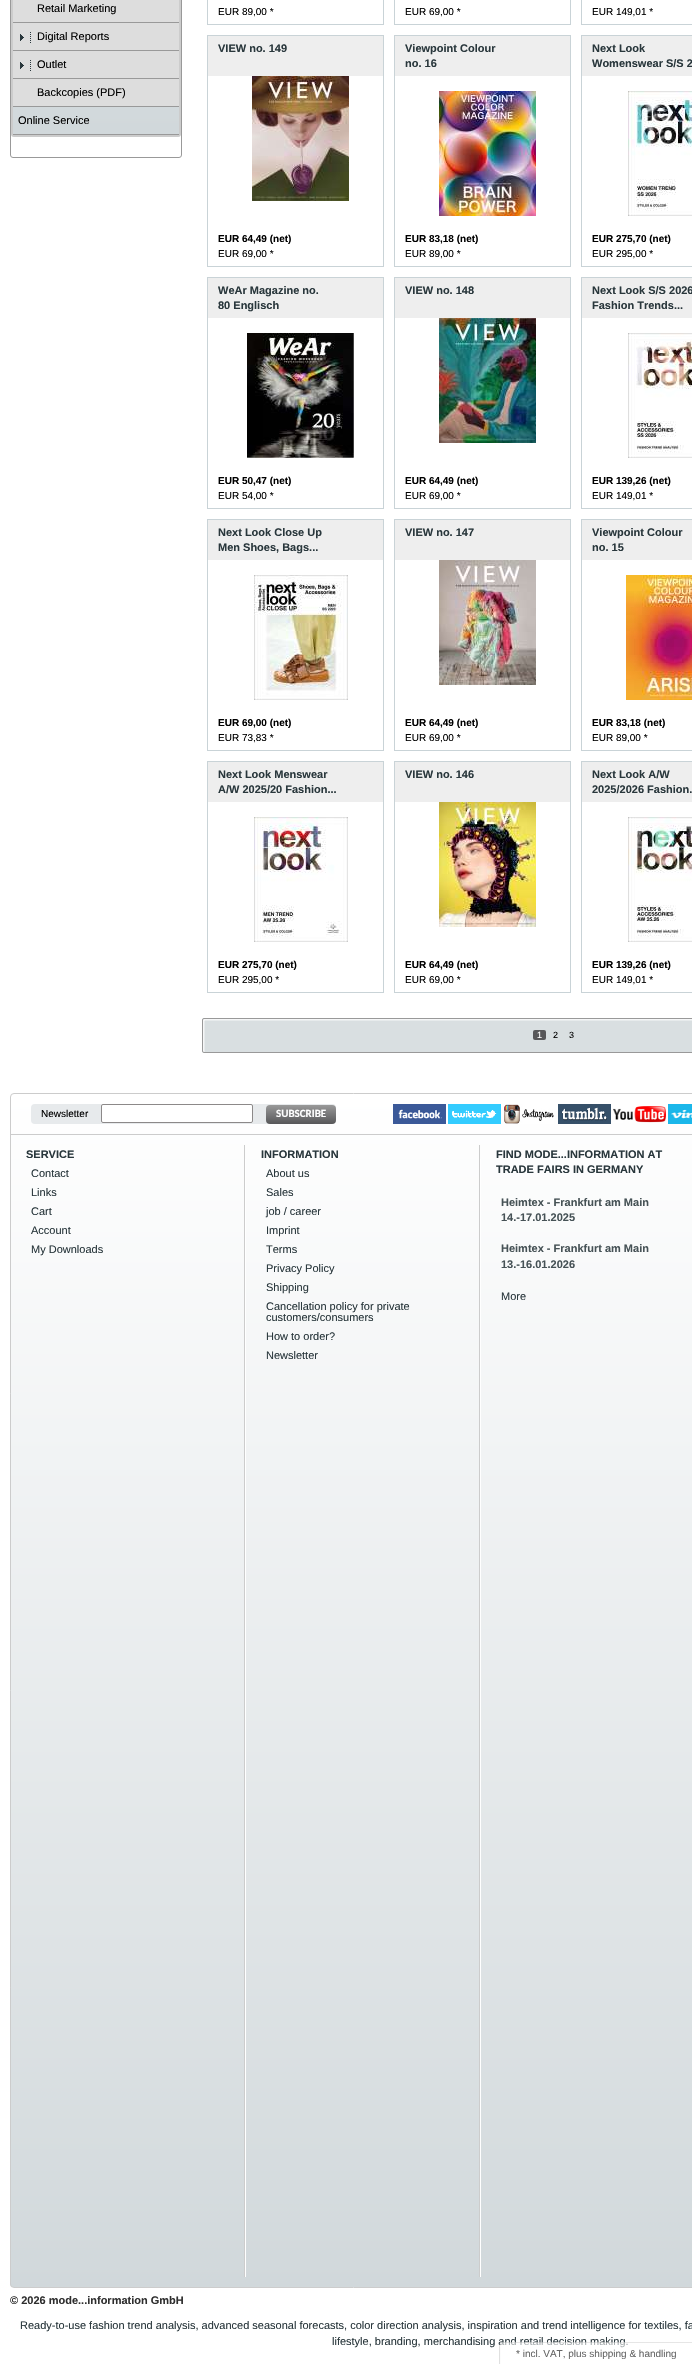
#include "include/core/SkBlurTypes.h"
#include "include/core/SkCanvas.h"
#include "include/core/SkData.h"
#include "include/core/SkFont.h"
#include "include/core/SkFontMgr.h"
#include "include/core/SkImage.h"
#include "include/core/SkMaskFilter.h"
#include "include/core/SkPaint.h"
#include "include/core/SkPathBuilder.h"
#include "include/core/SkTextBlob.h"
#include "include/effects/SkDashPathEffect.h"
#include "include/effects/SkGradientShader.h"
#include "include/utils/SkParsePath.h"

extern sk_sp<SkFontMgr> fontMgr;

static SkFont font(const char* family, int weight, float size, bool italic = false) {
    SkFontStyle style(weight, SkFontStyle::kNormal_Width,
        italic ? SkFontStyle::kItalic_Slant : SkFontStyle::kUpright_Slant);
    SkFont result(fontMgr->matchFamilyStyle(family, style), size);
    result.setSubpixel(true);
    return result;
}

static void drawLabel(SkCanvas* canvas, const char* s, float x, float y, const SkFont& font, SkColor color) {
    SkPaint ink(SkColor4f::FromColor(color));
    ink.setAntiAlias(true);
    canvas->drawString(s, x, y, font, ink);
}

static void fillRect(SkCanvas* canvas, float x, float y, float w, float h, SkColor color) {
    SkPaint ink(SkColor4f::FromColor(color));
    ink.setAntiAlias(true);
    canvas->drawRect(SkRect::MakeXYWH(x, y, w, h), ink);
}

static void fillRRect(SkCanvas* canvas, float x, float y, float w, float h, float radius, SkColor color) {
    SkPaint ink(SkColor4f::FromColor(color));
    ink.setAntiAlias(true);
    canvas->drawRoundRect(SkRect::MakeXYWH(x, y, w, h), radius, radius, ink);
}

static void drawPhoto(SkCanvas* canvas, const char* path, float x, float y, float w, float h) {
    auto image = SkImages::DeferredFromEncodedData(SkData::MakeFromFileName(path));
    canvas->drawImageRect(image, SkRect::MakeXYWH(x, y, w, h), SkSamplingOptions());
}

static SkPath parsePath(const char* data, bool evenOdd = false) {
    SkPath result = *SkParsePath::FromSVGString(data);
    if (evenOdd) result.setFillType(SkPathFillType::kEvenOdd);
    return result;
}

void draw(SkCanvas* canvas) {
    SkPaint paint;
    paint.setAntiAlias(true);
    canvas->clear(0xFFFFFFFF);
    paint.setStroke(true);
    paint.setStrokeWidth(1);
    paint.setColor(0xFF999999);
    canvas->drawRoundRect(SkRect::MakeXYWH(10.5f, -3.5f, 171, 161), 2.5f, 2.5f, paint);
    paint.setStroke(false);
    {
        const SkColor colors[] = {0xFFFFFFFF, 0xFFD1D8DB};
        const float stops[] = {0, 1};
        const SkPoint ends[] = {{96, -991}, {96, 135}};
        paint.setShader(SkGradientShader::MakeLinear(ends, colors, stops, 2, SkTileMode::kClamp));
        paint.setAlpha(255);
    }
    canvas->drawPath(parsePath("M14-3H178C179.5-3 181-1.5 181 0V135H11V0C11-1.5 12.5-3 14-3Z"), paint);
    paint.setShader(nullptr);
    paint.setColor(0xFFCCCCCC);
    canvas->drawPath(parsePath("M14-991H178C180-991 181-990 181-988V134C181 136 180 137 178 137H14C12 137 11 136 11 134V-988C11-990 12-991 14-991ZM14-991H178C179-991 179-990 179-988V134C179 135 179 135 178 135H14C13 135 13 135 13 134V-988C13-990 13-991 14-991Z", true), paint);
    fillRect(canvas, 13, 0, 166, 22, 0xFFDDDDDD);
    fillRect(canvas, 13, 22, 166, 1, 0xFF999999);
    SkFont font1 = font("Liberation Sans", 400, 11);
    drawLabel(canvas, "Retail Marketing", 37, 12, font1, 0xFF000000);
    fillRect(canvas, 13, 23, 166, 27, 0xFFDDDDDD);
    fillRect(canvas, 13, 50, 166, 1, 0xFF999999);
    drawPhoto(canvas, "assets/img1.png", 20, 32, 11, 11);
    drawLabel(canvas, "Digital Reports", 37, 40, font1, 0xFF000000);
    fillRect(canvas, 13, 51, 166, 27, 0xFFDDDDDD);
    fillRect(canvas, 13, 78, 166, 1, 0xFF999999);
    drawPhoto(canvas, "assets/img1.png", 20, 60, 11, 11);
    drawLabel(canvas, "Outlet", 37, 68, font1, 0xFF000000);
    fillRect(canvas, 13, 79, 166, 27, 0xFFDDDDDD);
    fillRect(canvas, 13, 106, 166, 1, 0xFF999999);
    drawLabel(canvas, "Backcopies (PDF)", 37, 96, font1, 0xFF000000);
    fillRect(canvas, 13, 134, 166, 1, 0xFF999999);
    drawLabel(canvas, "Online Service", 18, 124, font1, 0xFF000000);
    paint.setStroke(true);
    paint.setColor(0xFFC9D3D7);
    canvas->drawRect(SkRect::MakeXYWH(207.5f, -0.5f, 176, 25), paint);
    SkFont font2 = font("Liberation Sans", 400, 10);
    drawLabel(canvas, "EUR 89,00 *", 218, 15, font2, 0xFF000000);
    canvas->drawRect(SkRect::MakeXYWH(394.5f, -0.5f, 176, 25), paint);
    drawLabel(canvas, "EUR 69,00 *", 405, 15, font2, 0xFF000000);
    canvas->drawRect(SkRect::MakeXYWH(581.5f, -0.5f, 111, 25), paint);
    drawLabel(canvas, "EUR 149,01 *", 592, 15, font2, 0xFF000000);
    canvas->drawRect(SkRect::MakeXYWH(207.5f, 35.5f, 176, 231), paint);
    fillRect(canvas, 208, 36, 175, 40, 0xFFEEEEEE);
    SkFont font3 = font("Liberation Sans", 700, 11);
    drawLabel(canvas, "VIEW no. 149", 218, 52, font3, 0xFF29373C);
    drawPhoto(canvas, "assets/img2.png", 252, 76, 97, 125);
    SkFont font4 = font("Liberation Sans", 700, 10);
    drawLabel(canvas, "EUR 64,49 (net)", 218, 242, font4, 0xFF000000);
    drawLabel(canvas, "EUR 69,00 *", 218, 257, font2, 0xFF000000);
    canvas->drawRect(SkRect::MakeXYWH(394.5f, 35.5f, 176, 231), paint);
    fillRect(canvas, 395, 36, 175, 40, 0xFFEEEEEE);
    drawLabel(canvas, "Viewpoint Colour", 405, 52, font3, 0xFF29373C);
    drawLabel(canvas, "no. 16", 405, 67, font3, 0xFF29373C);
    drawPhoto(canvas, "assets/img3.png", 439, 91, 97, 125);
    drawLabel(canvas, "EUR 83,18 (net)", 405, 242, font4, 0xFF000000);
    drawLabel(canvas, "EUR 89,00 *", 405, 257, font2, 0xFF000000);
    canvas->drawRect(SkRect::MakeXYWH(581.5f, 35.5f, 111, 231), paint);
    fillRect(canvas, 582, 36, 110, 40, 0xFFEEEEEE);
    drawLabel(canvas, "Next Look", 592, 52, font3, 0xFF29373C);
    drawLabel(canvas, "Womenswear S/S 2", 592, 67, font3, 0xFF29373C);
    drawPhoto(canvas, "assets/img4.png", 628, 91, 64, 125);
    drawLabel(canvas, "EUR 275,70 (net)", 592, 242, font4, 0xFF000000);
    drawLabel(canvas, "EUR 295,00 *", 592, 257, font2, 0xFF000000);
    canvas->drawRect(SkRect::MakeXYWH(207.5f, 277.5f, 176, 231), paint);
    fillRect(canvas, 208, 278, 175, 40, 0xFFEEEEEE);
    drawLabel(canvas, "WeAr Magazine no.", 218, 294, font3, 0xFF29373C);
    drawLabel(canvas, "80 Englisch", 218, 309, font3, 0xFF29373C);
    drawPhoto(canvas, "assets/img5.png", 247, 333, 107, 125);
    drawLabel(canvas, "EUR 50,47 (net)", 218, 484, font4, 0xFF000000);
    drawLabel(canvas, "EUR 54,00 *", 218, 499, font2, 0xFF000000);
    canvas->drawRect(SkRect::MakeXYWH(394.5f, 277.5f, 176, 231), paint);
    fillRect(canvas, 395, 278, 175, 40, 0xFFEEEEEE);
    drawLabel(canvas, "VIEW no. 148", 405, 294, font3, 0xFF29373C);
    drawPhoto(canvas, "assets/img6.png", 439, 318, 97, 125);
    drawLabel(canvas, "EUR 64,49 (net)", 405, 484, font4, 0xFF000000);
    drawLabel(canvas, "EUR 69,00 *", 405, 499, font2, 0xFF000000);
    canvas->drawRect(SkRect::MakeXYWH(581.5f, 277.5f, 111, 231), paint);
    fillRect(canvas, 582, 278, 110, 40, 0xFFEEEEEE);
    drawLabel(canvas, "Next Look S/S 2026", 592, 294, font3, 0xFF29373C);
    drawLabel(canvas, "Fashion Trends...", 592, 309, font3, 0xFF29373C);
    drawPhoto(canvas, "assets/img7.png", 628, 333, 64, 125);
    drawLabel(canvas, "EUR 139,26 (net)", 592, 484, font4, 0xFF000000);
    drawLabel(canvas, "EUR 149,01 *", 592, 499, font2, 0xFF000000);
    canvas->drawRect(SkRect::MakeXYWH(207.5f, 519.5f, 176, 231), paint);
    fillRect(canvas, 208, 520, 175, 40, 0xFFEEEEEE);
    drawLabel(canvas, "Next Look Close Up", 218, 536, font3, 0xFF29373C);
    drawLabel(canvas, "Men Shoes, Bags...", 218, 551, font3, 0xFF29373C);
    drawPhoto(canvas, "assets/img8.png", 254, 575, 94, 125);
    drawLabel(canvas, "EUR 69,00 (net)", 218, 726, font4, 0xFF000000);
    drawLabel(canvas, "EUR 73,83 *", 218, 741, font2, 0xFF000000);
    canvas->drawRect(SkRect::MakeXYWH(394.5f, 519.5f, 176, 231), paint);
    fillRect(canvas, 395, 520, 175, 40, 0xFFEEEEEE);
    drawLabel(canvas, "VIEW no. 147", 405, 536, font3, 0xFF29373C);
    drawPhoto(canvas, "assets/img9.png", 439, 560, 97, 125);
    drawLabel(canvas, "EUR 64,49 (net)", 405, 726, font4, 0xFF000000);
    drawLabel(canvas, "EUR 69,00 *", 405, 741, font2, 0xFF000000);
    canvas->drawRect(SkRect::MakeXYWH(581.5f, 519.5f, 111, 231), paint);
    fillRect(canvas, 582, 520, 110, 40, 0xFFEEEEEE);
    drawLabel(canvas, "Viewpoint Colour", 592, 536, font3, 0xFF29373C);
    drawLabel(canvas, "no. 15", 592, 551, font3, 0xFF29373C);
    drawPhoto(canvas, "assets/img10.png", 626, 575, 66, 125);
    drawLabel(canvas, "EUR 83,18 (net)", 592, 726, font4, 0xFF000000);
    drawLabel(canvas, "EUR 89,00 *", 592, 741, font2, 0xFF000000);
    canvas->drawRect(SkRect::MakeXYWH(207.5f, 761.5f, 176, 231), paint);
    fillRect(canvas, 208, 762, 175, 40, 0xFFEEEEEE);
    drawLabel(canvas, "Next Look Menswear", 218, 778, font3, 0xFF29373C);
    drawLabel(canvas, "A/W 2025/20 Fashion...", 218, 793, font3, 0xFF29373C);
    drawPhoto(canvas, "assets/img11.png", 254, 817, 94, 125);
    drawLabel(canvas, "EUR 275,70 (net)", 218, 968, font4, 0xFF000000);
    drawLabel(canvas, "EUR 295,00 *", 218, 983, font2, 0xFF000000);
    canvas->drawRect(SkRect::MakeXYWH(394.5f, 761.5f, 176, 231), paint);
    fillRect(canvas, 395, 762, 175, 40, 0xFFEEEEEE);
    drawLabel(canvas, "VIEW no. 146", 405, 778, font3, 0xFF29373C);
    drawPhoto(canvas, "assets/img12.png", 439, 802, 97, 125);
    drawLabel(canvas, "EUR 64,49 (net)", 405, 968, font4, 0xFF000000);
    drawLabel(canvas, "EUR 69,00 *", 405, 983, font2, 0xFF000000);
    canvas->drawRect(SkRect::MakeXYWH(581.5f, 761.5f, 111, 231), paint);
    fillRect(canvas, 582, 762, 110, 40, 0xFFEEEEEE);
    drawLabel(canvas, "Next Look A/W", 592, 778, font3, 0xFF29373C);
    drawLabel(canvas, "2025/2026 Fashion.", 592, 793, font3, 0xFF29373C);
    drawPhoto(canvas, "assets/img13.png", 628, 817, 64, 125);
    drawLabel(canvas, "EUR 139,26 (net)", 592, 968, font4, 0xFF000000);
    drawLabel(canvas, "EUR 149,01 *", 592, 983, font2, 0xFF000000);
    fillRRect(canvas, 202, 1018, 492, 35, 2, 0xFFD9DFE1);
    drawPhoto(canvas, "assets/img14.png", 203, 1019, 489, 34);
    paint.setColor(0xFF999999);
    canvas->drawRoundRect(SkRect::MakeXYWH(202.5f, 1018.5f, 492, 34), 1.5f, 1.5f, paint);
    fillRRect(canvas, 533, 1030, 13, 10, 2, 0xFF575759);
    SkFont font5 = font("Liberation Sans", 400, 9);
    drawLabel(canvas, "1", 537, 1038, font5, 0xFFFFFFFF);
    drawLabel(canvas, "2", 553, 1038, font5, 0xFF000000);
    drawLabel(canvas, "3", 569, 1038, font5, 0xFF000000);
    canvas->save();
    canvas->clipPath(parsePath("M14 1093H946C948 1093 950 1095 950 1097V2284C950 2286 948 2288 946 2288H14C12 2288 10 2286 10 2284V1097C10 1095 12 1093 14 1093Z"), true);
    paint.setStroke(false);
    {
        const SkColor colors[] = {0xFFFFFFFF, 0xFFD1D8DB};
        const float stops[] = {0, 1};
        const SkPoint ends[] = {{480, 1094}, {480, 2287}};
        paint.setShader(SkGradientShader::MakeLinear(ends, colors, stops, 2, SkTileMode::kClamp));
        paint.setAlpha(255);
    }
    canvas->drawRect(SkRect::MakeXYWH(10, 1094, 682, 1193), paint);
    canvas->restore();
    paint.setStroke(true);
    paint.setShader(nullptr);
    paint.setColor(0xFFCCCCCC);
    canvas->drawRoundRect(SkRect::MakeXYWH(10.5f, 1093.5f, 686, 1194), 3.5f, 3.5f, paint);
    fillRect(canvas, 11, 1134, 681, 1, 0xFFCCCCCC);
    fillRRect(canvas, 31, 1104, 305, 20, 4, 0xFFE7EAEC);
    drawLabel(canvas, "Newsletter", 41, 1117, font2, 0xFF000000);
    paint.setStroke(false);
    paint.setColor(0xFFFFFFFF);
    canvas->drawRoundRect(SkRect::MakeXYWH(101.5f, 1104.5f, 151, 18), 1.5f, 1.5f, paint);
    paint.setStroke(true);
    paint.setColor(0xFF8C8989);
    canvas->drawRoundRect(SkRect::MakeXYWH(101.5f, 1104.5f, 151, 18), 1.5f, 1.5f, paint);
    paint.setStroke(false);
    {
        const SkColor colors[] = {0xFF999999, 0xFF575759};
        const float stops[] = {0, 1};
        const SkPoint ends[] = {{301, 1105}, {301, 1124}};
        paint.setShader(SkGradientShader::MakeLinear(ends, colors, stops, 2, SkTileMode::kClamp));
        paint.setAlpha(255);
    }
    canvas->drawRoundRect(SkRect::MakeXYWH(266, 1105, 70, 19), 4, 4, paint);
    SkFont font6 = font("Carlito", 700, 11);
    drawLabel(canvas, "SUBSCRIBE", 276, 1117, font6, 0xFFFFFFFF);
    drawPhoto(canvas, "assets/img15.png", 393, 1104, 53, 20);
    drawPhoto(canvas, "assets/img16.png", 448, 1104, 53, 20);
    drawPhoto(canvas, "assets/img17.png", 504, 1104, 50, 20);
    drawPhoto(canvas, "assets/img18.png", 558, 1104, 53, 20);
    drawPhoto(canvas, "assets/img19.png", 613, 1106, 53, 17);
    drawPhoto(canvas, "assets/img20.png", 668, 1104, 24, 20);
    fillRect(canvas, 244, 1145, 1, 1132, 0xFFCCCCCC);
    drawLabel(canvas, "SERVICE", 26, 1158, font3, 0xFF29373C);
    drawLabel(canvas, "Contact", 31, 1177, font1, 0xFF29373C);
    drawLabel(canvas, "Links", 31, 1196, font1, 0xFF29373C);
    drawLabel(canvas, "Cart", 31, 1215, font1, 0xFF29373C);
    drawLabel(canvas, "Account", 31, 1234, font1, 0xFF29373C);
    drawLabel(canvas, "My Downloads", 31, 1253, font1, 0xFF29373C);
    fillRect(canvas, 479, 1145, 1, 1132, 0xFFCCCCCC);
    fillRect(canvas, 245, 1159, 1, 1118, 0xFFFFFFFF);
    drawLabel(canvas, "INFORMATION", 261, 1158, font3, 0xFF29373C);
    drawLabel(canvas, "About us", 266, 1177, font1, 0xFF29373C);
    drawLabel(canvas, "Sales", 266, 1196, font1, 0xFF29373C);
    drawLabel(canvas, "job / career", 266, 1215, font1, 0xFF29373C);
    drawLabel(canvas, "Imprint", 266, 1234, font1, 0xFF29373C);
    drawLabel(canvas, "Terms", 266, 1253, font1, 0xFF29373C);
    drawLabel(canvas, "Privacy Policy", 266, 1272, font1, 0xFF29373C);
    drawLabel(canvas, "Shipping", 266, 1291, font1, 0xFF29373C);
    drawLabel(canvas, "Cancellation policy for private", 266, 1310, font1, 0xFF29373C);
    drawLabel(canvas, "customers/consumers", 266, 1321, font1, 0xFF29373C);
    drawLabel(canvas, "How to order?", 266, 1340, font1, 0xFF29373C);
    drawLabel(canvas, "Newsletter", 266, 1359, font1, 0xFF29373C);
    fillRect(canvas, 480, 1159, 1, 1118, 0xFFFFFFFF);
    drawLabel(canvas, "FIND MODE...INFORMATION AT", 496, 1158, font3, 0xFF29373C);
    drawLabel(canvas, "TRADE FAIRS IN GERMANY", 496, 1173, font3, 0xFF29373C);
    drawLabel(canvas, "Heimtex - Frankfurt am Main", 501, 1206, font3, 0xFF465256);
    drawLabel(canvas, "14.-17.01.2025", 501, 1221, font3, 0xFF465256);
    drawLabel(canvas, "Heimtex - Frankfurt am Main", 501, 1252, font3, 0xFF465256);
    drawLabel(canvas, "13.-16.01.2026", 501, 1268, font3, 0xFF465256);
    drawLabel(canvas, "More", 501, 1300, font1, 0xFF29373C);
    drawLabel(canvas, "© 2026 mode...information GmbH", 10, 2304, font3, 0xFF2F2F2F);
    drawLabel(canvas, "Ready-to-use fashion trend analysis, advanced seasonal forecasts, color direction analysis, inspiration and trend intelligence for textiles, fa", 20, 2329, font1, 0xFF29373C);
    drawLabel(canvas, "lifestyle, branding, merchandising and retail decision making.", 332, 2345, font1, 0xFF29373C);
    drawPhoto(canvas, "assets/img21.png", 499, 2342, 193, 22);
    drawLabel(canvas, "* incl. VAT, plus shipping & handling", 516, 2357, font2, 0xFF666666);
}
